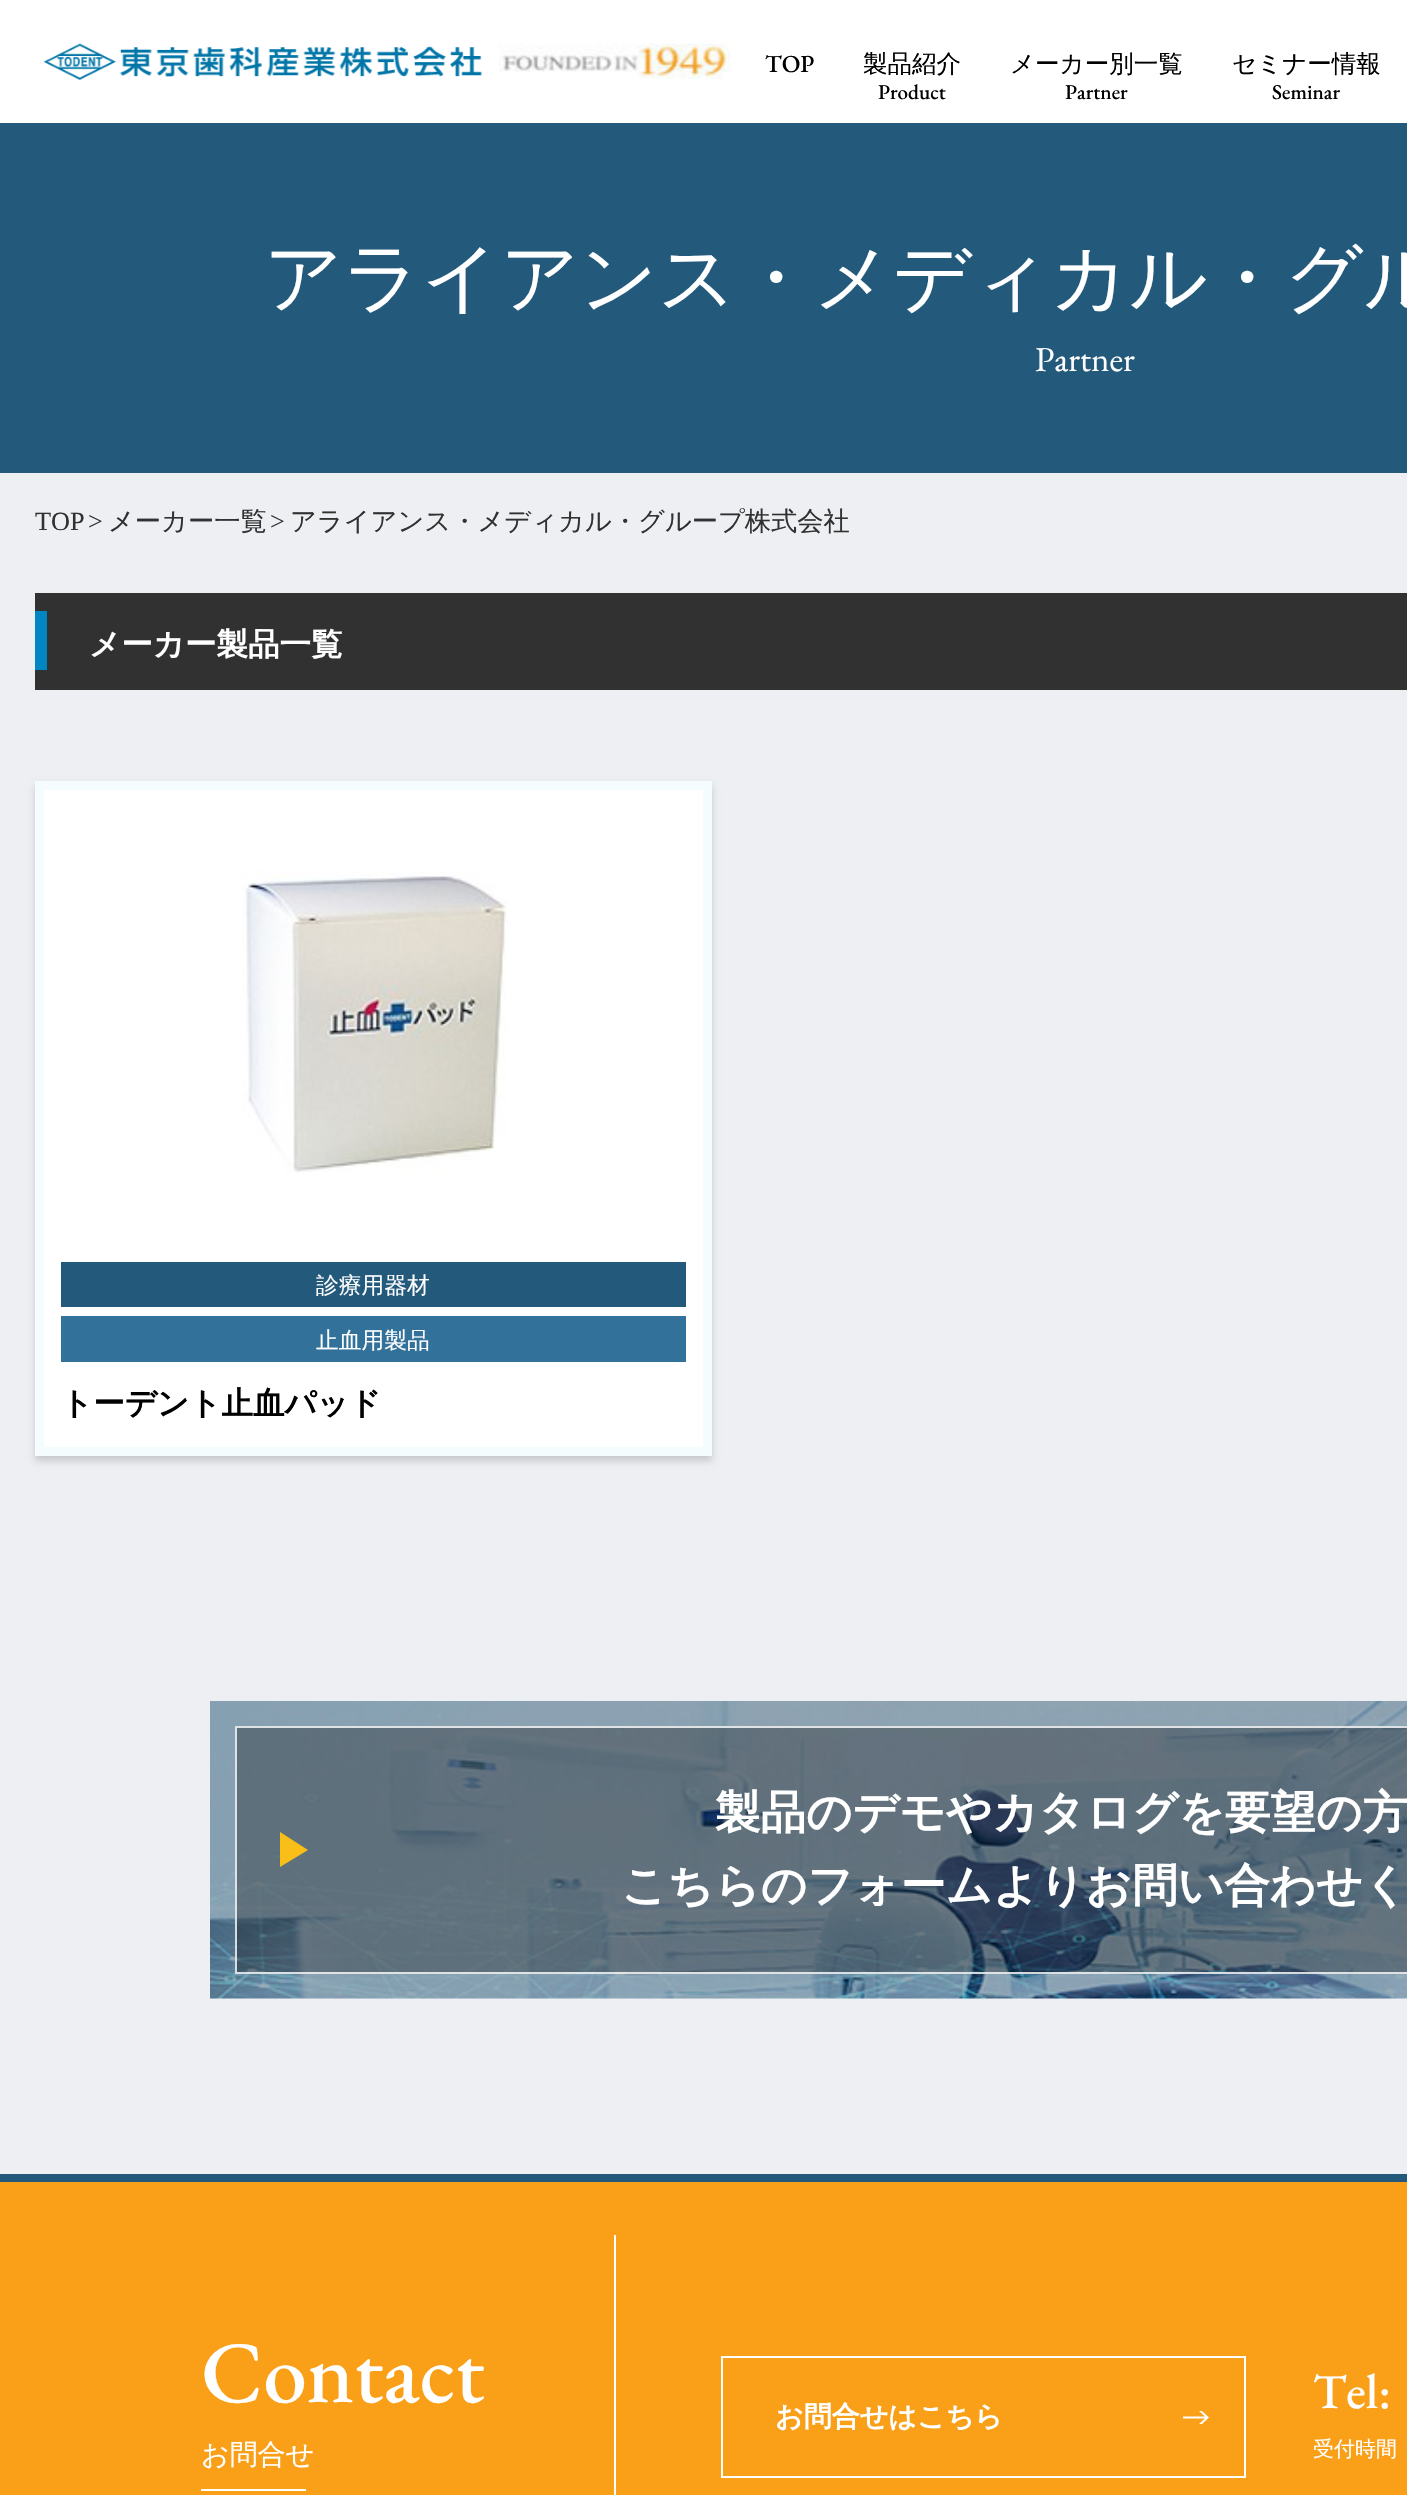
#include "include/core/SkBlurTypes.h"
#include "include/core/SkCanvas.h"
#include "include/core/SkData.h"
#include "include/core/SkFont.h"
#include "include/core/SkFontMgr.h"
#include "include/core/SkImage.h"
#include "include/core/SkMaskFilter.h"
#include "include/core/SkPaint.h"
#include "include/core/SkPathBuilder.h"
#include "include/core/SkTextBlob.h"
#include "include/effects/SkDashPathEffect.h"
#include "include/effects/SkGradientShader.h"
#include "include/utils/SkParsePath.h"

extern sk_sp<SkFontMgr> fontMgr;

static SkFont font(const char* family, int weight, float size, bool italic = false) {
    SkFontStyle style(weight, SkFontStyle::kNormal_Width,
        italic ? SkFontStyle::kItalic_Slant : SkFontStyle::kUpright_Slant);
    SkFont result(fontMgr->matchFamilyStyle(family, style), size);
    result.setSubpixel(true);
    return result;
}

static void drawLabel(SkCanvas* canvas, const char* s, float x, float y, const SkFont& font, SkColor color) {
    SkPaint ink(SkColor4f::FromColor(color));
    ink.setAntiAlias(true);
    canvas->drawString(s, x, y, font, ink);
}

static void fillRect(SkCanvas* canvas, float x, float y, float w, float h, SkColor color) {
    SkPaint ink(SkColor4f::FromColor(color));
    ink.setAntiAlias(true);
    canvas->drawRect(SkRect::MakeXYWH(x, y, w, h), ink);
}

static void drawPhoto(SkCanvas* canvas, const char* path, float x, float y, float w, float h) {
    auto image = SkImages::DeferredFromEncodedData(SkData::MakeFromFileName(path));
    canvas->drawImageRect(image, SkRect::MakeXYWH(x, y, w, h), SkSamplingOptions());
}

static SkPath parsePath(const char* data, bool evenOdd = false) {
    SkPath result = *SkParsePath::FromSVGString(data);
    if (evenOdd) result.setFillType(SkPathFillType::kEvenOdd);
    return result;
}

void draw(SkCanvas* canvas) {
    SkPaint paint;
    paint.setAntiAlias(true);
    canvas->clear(0xFFEDEFF2);
    fillRect(canvas, 0, 0, 1407, 123, 0xFFFFFFFF);
    drawPhoto(canvas, "assets/img1.png", 44, 43, 438, 37);
    drawPhoto(canvas, "assets/img2.png", 499, 43, 231, 36);
    SkFont font1 = font("EB Garamond", 500, 24.5f);
    drawLabel(canvas, "TOP", 765, 72, font1, 0xFF000000);
    SkFont font2 = font("WenQuanYi Zen Hei", 500, 24.5f);
    drawLabel(canvas, "製品紹介", 863, 72, font2, 0xFF000000);
    SkFont font3 = font("EB Garamond", 500, 21);
    drawLabel(canvas, "Product", 878, 99, font3, 0xFF000000);
    drawLabel(canvas, "メーカー別一覧", 1010, 72, font2, 0xFF000000);
    drawLabel(canvas, "Partner", 1065, 99, font3, 0xFF000000);
    drawLabel(canvas, "セミナー情報", 1232, 72, font2, 0xFF000000);
    drawLabel(canvas, "Seminar", 1272, 99, font3, 0xFF000000);
    fillRect(canvas, 0, 123, 1407, 350, 0xFF23597A);
    SkFont font4 = font("WenQuanYi Zen Hei", 500, 77);
    drawLabel(canvas, "アライアンス・メディカル・グル", 264, 304, font4, 0xFFFFFFFF);
    SkFont font5 = font("EB Garamond", 400, 35);
    drawLabel(canvas, "Partner", 1035, 371, font5, 0xFFFFFFFF);
    SkFont font6 = font("Liberation Serif", 400, 26.25f);
    drawLabel(canvas, "TOP", 35, 530, font6, 0xFF313131);
    drawLabel(canvas, ">", 88, 530, font6, 0xFF313131);
    SkFont font7 = font("WenQuanYi Zen Hei", 500, 26.25f);
    drawLabel(canvas, "メーカー一覧", 108, 530, font7, 0xFF313131);
    drawLabel(canvas, ">", 270, 530, font6, 0xFF313131);
    drawLabel(canvas, "アライアンス・メディカル・グループ株式会社", 290, 530, font7, 0xFF313131);
    fillRect(canvas, 35, 593, 1372, 97, 0xFF313131);
    fillRect(canvas, 35, 611, 12, 59, 0xFF0086C3);
    SkFont font8 = font("WenQuanYi Zen Hei", 700, 31.5f);
    drawLabel(canvas, "メーカー製品一覧", 89, 655, font8, 0xFFFFFFFF);
    paint.setColor(0x29000000);
    paint.setMaskFilter(SkMaskFilter::MakeBlur(kNormal_SkBlurStyle, 3.5f));
    canvas->drawRect(SkRect::MakeXYWH(35, 786, 677, 675), paint);
    paint.setMaskFilter(nullptr);
    paint.setColor(0xFFFFFFFF);
    canvas->drawRect(SkRect::MakeXYWH(39.5f, 785.5f, 668, 666), paint);
    paint.setStroke(true);
    paint.setStrokeWidth(9);
    paint.setColor(0xFFF5FCFE);
    canvas->drawRect(SkRect::MakeXYWH(39.5f, 785.5f, 668, 666), paint);
    drawPhoto(canvas, "assets/img3.png", 242, 870, 266, 303);
    fillRect(canvas, 61, 1262, 625, 45, 0xFF23597B);
    SkFont font9 = font("WenQuanYi Zen Hei", 500, 22.75f);
    drawLabel(canvas, "診療用器材", 316, 1293, font9, 0xFFFFFFFF);
    fillRect(canvas, 61, 1316, 625, 46, 0xFF32729A);
    drawLabel(canvas, "止血用製品", 316, 1348, font9, 0xFFFFFFFF);
    drawLabel(canvas, "トーデント止血パッド", 61, 1414, font8, 0xFF000000);
    drawPhoto(canvas, "assets/img4.png", 210, 1701, 1197, 298);
    fillRect(canvas, 235, 1726, 1172, 248, 0x4D000000);
    paint.setStrokeWidth(2);
    paint.setColor(0xCCFFFFFF);
    canvas->drawRect(SkRect::MakeXYWH(236, 1727, 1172, 246), paint);
    SkFont font10 = font("WenQuanYi Zen Hei", 700, 45.5f);
    drawLabel(canvas, "製品のデモやカタログを要望の方", 715, 1828, font10, 0xFFFFFFFF);
    paint.setStroke(false);
    paint.setColor(0xFFF9BF18);
    canvas->drawPath(parsePath("M280 1867V1832L308 1850Z"), paint);
    drawLabel(canvas, "こちらのフォームよりお問い合わせく", 621, 1901, font10, 0xFFFFFFFF);
    fillRect(canvas, 0, 2182, 1407, 313, 0xFFF9A018);
    fillRect(canvas, 0, 2174, 1407, 8, 0xFF23597A);
    fillRect(canvas, 614, 2235, 2, 260, 0xFFFFFFFF);
    SkFont font11 = font("EB Garamond", 500, 87.5f);
    drawLabel(canvas, "Contact", 201, 2402, font11, 0xFFFFFFFF);
    SkFont font12 = font("WenQuanYi Zen Hei", 500, 28);
    drawLabel(canvas, "お問合せ", 201, 2464, font12, 0xFFFFFFFF);
    fillRect(canvas, 201, 2489, 105, 2, 0xFFFFFFFF);
    paint.setStroke(true);
    paint.setColor(0xFFFFFFFF);
    canvas->drawRect(SkRect::MakeXYWH(722, 2357, 523, 120), paint);
    SkFont font13 = font("WenQuanYi Zen Hei", 700, 28);
    drawLabel(canvas, "お問合せはこちら", 775, 2426, font13, 0xFFFFFFFF);
    paint.setStroke(false);
    canvas->drawPath(parsePath("M1209 2417.5L1202 2424H1199L1205 2418.5H1183V2416.5H1205L1199 2411H1202Z"), paint);
    SkFont font14 = font("EB Garamond", 500, 49);
    drawLabel(canvas, "Tel:", 1313, 2408, font14, 0xFFFFFFFF);
    SkFont font15 = font("WenQuanYi Zen Hei", 500, 21);
    drawLabel(canvas, "受付時間", 1313, 2456, font15, 0xFFFFFFFF);
}
